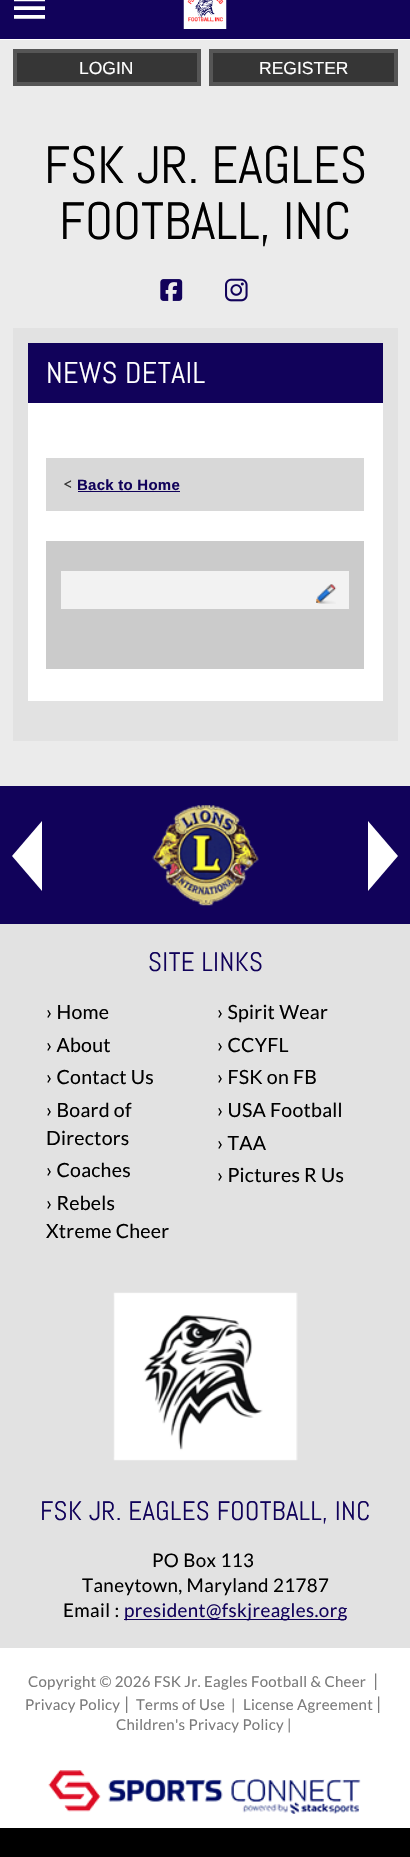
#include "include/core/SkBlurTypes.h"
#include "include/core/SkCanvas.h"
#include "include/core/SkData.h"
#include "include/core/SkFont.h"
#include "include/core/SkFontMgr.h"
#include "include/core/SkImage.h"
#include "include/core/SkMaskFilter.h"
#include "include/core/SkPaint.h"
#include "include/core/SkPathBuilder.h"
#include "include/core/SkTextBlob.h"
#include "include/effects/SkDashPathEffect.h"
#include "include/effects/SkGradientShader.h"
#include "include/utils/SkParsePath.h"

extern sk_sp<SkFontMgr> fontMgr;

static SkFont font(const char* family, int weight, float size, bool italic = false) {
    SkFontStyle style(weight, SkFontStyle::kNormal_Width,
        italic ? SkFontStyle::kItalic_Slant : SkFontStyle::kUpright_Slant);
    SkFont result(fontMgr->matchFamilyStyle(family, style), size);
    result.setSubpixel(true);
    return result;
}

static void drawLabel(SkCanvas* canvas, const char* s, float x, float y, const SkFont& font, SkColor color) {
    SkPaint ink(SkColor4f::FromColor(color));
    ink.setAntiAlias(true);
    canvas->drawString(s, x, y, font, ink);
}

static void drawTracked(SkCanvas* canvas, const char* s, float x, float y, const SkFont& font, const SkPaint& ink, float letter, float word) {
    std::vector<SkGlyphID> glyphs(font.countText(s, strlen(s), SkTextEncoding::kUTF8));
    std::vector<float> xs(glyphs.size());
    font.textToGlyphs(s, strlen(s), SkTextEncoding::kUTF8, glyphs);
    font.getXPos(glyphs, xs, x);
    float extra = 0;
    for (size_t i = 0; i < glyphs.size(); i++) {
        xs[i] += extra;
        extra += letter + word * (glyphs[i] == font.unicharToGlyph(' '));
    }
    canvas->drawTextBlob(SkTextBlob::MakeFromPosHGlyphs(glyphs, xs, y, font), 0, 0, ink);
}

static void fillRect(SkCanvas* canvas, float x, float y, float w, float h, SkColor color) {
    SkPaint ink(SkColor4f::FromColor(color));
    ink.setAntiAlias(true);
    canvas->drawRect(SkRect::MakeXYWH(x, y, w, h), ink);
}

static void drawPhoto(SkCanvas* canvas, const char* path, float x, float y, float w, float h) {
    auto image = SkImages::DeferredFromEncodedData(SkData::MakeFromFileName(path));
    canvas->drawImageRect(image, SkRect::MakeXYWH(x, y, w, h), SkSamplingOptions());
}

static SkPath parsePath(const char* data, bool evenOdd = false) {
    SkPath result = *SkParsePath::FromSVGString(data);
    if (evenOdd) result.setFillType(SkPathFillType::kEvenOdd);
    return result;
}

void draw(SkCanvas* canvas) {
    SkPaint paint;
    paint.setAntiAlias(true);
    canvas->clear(0xFF000000);
    fillRect(canvas, 0, 0, 410, 39, 0xFF11025A);
    fillRect(canvas, 0, 39, 410, 1, 0xFFFFFFFF);
    drawPhoto(canvas, "assets/img1.png", 14, 0, 31, 19);
    drawPhoto(canvas, "assets/img2.png", 183, 0, 44, 29);
    fillRect(canvas, 0, 40, 410, 746, 0xFFEBEBEB);
    paint.setColor(0xFF363636);
    canvas->drawRect(SkRect::MakeXYWH(15, 51, 184, 33), paint);
    paint.setStroke(true);
    paint.setStrokeWidth(4);
    paint.setColor(0xFF565656);
    canvas->drawRect(SkRect::MakeXYWH(15, 51, 184, 33), paint);
    SkFont font1 = font("Liberation Sans", 400, 17.5f);
    drawLabel(canvas, "LOGIN", 79, 74, font1, 0xFFFFFFFF);
    paint.setStroke(false);
    paint.setColor(0xFF363636);
    canvas->drawRect(SkRect::MakeXYWH(211, 51, 185, 33), paint);
    paint.setStroke(true);
    paint.setColor(0xFF565656);
    canvas->drawRect(SkRect::MakeXYWH(211, 51, 185, 33), paint);
    drawLabel(canvas, "REGISTER", 259, 74, font1, 0xFFFFFFFF);
    SkFont font2 = font("Abel", 400, 52.5f);
    drawLabel(canvas, "FSK JR. EAGLES", 44, 183, font2, 0xFF000000);
    drawLabel(canvas, "FOOTBALL, INC", 59, 239, font2, 0xFF000000);
    drawPhoto(canvas, "assets/img3.png", 160, 279, 23, 22);
    drawPhoto(canvas, "assets/img4.png", 225, 278, 23, 24);
    fillRect(canvas, 13, 328, 385, 413, 0xFFE2E2E2);
    fillRect(canvas, 28, 343, 355, 60, 0xFF11025A);
    SkFont font3 = font("Abel", 400, 30);
    paint.setStroke(false);
    paint.setColor(0xFFFFFFFF);
    drawTracked(canvas, "NEWS DETAIL", 46, 383, font3, paint, 0.4f, 0);
    fillRect(canvas, 28, 403, 355, 298, 0xFFFFFFFF);
    fillRect(canvas, 46, 458, 318, 53, 0xFFD8D8D8);
    SkFont font4 = font("Lato", 400, 17.5f);
    paint.setColor(0xFF363636);
    drawTracked(canvas, "<", 63, 490, font4, paint, 0.25f, 0);
    SkFont font5 = font("Liberation Sans", 700, 15);
    paint.setColor(0xFF11025A);
    drawTracked(canvas, "Back to Home", 77, 490, font5, paint, 0.25f, 0);
    fillRect(canvas, 78, 491, 102, 1, 0xFF11025A);
    fillRect(canvas, 46, 541, 318, 128, 0xFFCBCBCB);
    fillRect(canvas, 61, 571, 288, 38, 0xFFF2F2F2);
    drawPhoto(canvas, "assets/img5.png", 316, 584, 21, 20);
    fillRect(canvas, 0, 786, 410, 138, 0xFF11025A);
    paint.setColor(0xFFFFFFFF);
    canvas->drawPath(parsePath("M42 821V891L12 856Z"), paint);
    drawPhoto(canvas, "assets/img6.png", 152, 805, 107, 101);
    canvas->drawPath(parsePath("M368 891V821L398 856Z"), paint);
    fillRect(canvas, 0, 924, 410, 724, 0xFFE2E2E2);
    SkFont font6 = font("Abel", 400, 26.75f);
    paint.setColor(0xFF11025A);
    drawTracked(canvas, "SITE LINKS", 148, 971, font6, paint, 0.4f, 0);
    SkFont font7 = font("Lato", 400, 19.5f);
    paint.setColor(0xFF000000);
    drawTracked(canvas, "› Home", 46, 1019, font7, paint, 0.25f, 0);
    drawTracked(canvas, "› About", 46, 1052, font7, paint, 0.25f, 0);
    drawTracked(canvas, "› Contact Us", 46, 1084, font7, paint, 0.25f, 0);
    drawTracked(canvas, "› Board of", 46, 1117, font7, paint, 0.25f, 0);
    drawTracked(canvas, "Directors", 46, 1145, font7, paint, 0.25f, 0);
    drawTracked(canvas, "› Coaches", 46, 1177, font7, paint, 0.25f, 0);
    drawTracked(canvas, "› Rebels", 46, 1210, font7, paint, 0.25f, 0);
    drawTracked(canvas, "Xtreme Cheer", 46, 1238, font7, paint, 0.25f, 0);
    drawTracked(canvas, "› Spirit Wear", 217, 1019, font7, paint, 0.25f, 0);
    drawTracked(canvas, "› CCYFL", 217, 1052, font7, paint, 0.25f, 0);
    drawTracked(canvas, "› FSK on FB", 217, 1084, font7, paint, 0.25f, 0);
    drawTracked(canvas, "› USA Football", 217, 1117, font7, paint, 0.25f, 0);
    drawTracked(canvas, "› TAA", 217, 1150, font7, paint, 0.25f, 0);
    drawTracked(canvas, "› Pictures R Us", 217, 1182, font7, paint, 0.25f, 0);
    drawPhoto(canvas, "assets/img7.png", 113, 1292, 185, 169);
    paint.setColor(0xFF11025A);
    drawTracked(canvas, "FSK JR. EAGLES FOOTBALL, INC", 40, 1520, font6, paint, 0.4f, 0);
    SkFont font8 = font("Lato", 400, 18.75f);
    paint.setColor(0xFF000000);
    drawTracked(canvas, "PO Box 113", 152, 1567, font8, paint, 0.4f, 0);
    drawTracked(canvas, "Taneytown, Maryland 21787", 82, 1592, font8, paint, 0.4f, 0);
    drawTracked(canvas, "Email :", 63, 1617, font8, paint, 0.4f, 0);
    fillRect(canvas, 124, 1619, 222, 1, 0xFF11025A);
    paint.setColor(0xFF11025A);
    drawTracked(canvas, "president@fskjreagles.org", 124, 1617, font8, paint, 0.4f, 0);
    fillRect(canvas, 0, 1648, 410, 180, 0xFFFFFFFF);
    SkFont font9 = font("Lato", 400, 15);
    paint.setColor(0xFF7B7B7B);
    drawTracked(canvas, "Copyright © 2026 FSK Jr. Eagles Football & Cheer", 28, 1687, font9, paint, 0.25f, 0);
    drawLabel(canvas, "|", 373, 1687, font4, 0xFF7B7B7B);
    drawTracked(canvas, "Privacy Policy", 25, 1710, font9, paint, 0.25f, 0);
    drawLabel(canvas, "|", 124, 1710, font4, 0xFF7B7B7B);
    drawTracked(canvas, "Terms of Use", 136, 1710, font9, paint, 0.25f, 0);
    drawTracked(canvas, "|", 231, 1710, font9, paint, 0.25f, 0);
    drawTracked(canvas, "License Agreement", 243, 1710, font9, paint, 0.25f, 0);
    drawLabel(canvas, "|", 376, 1710, font4, 0xFF7B7B7B);
    drawTracked(canvas, "Children's Privacy Policy |", 116, 1730, font9, paint, 0.25f, 0);
    drawPhoto(canvas, "assets/img8.png", 48, 1770, 313, 44);
}
